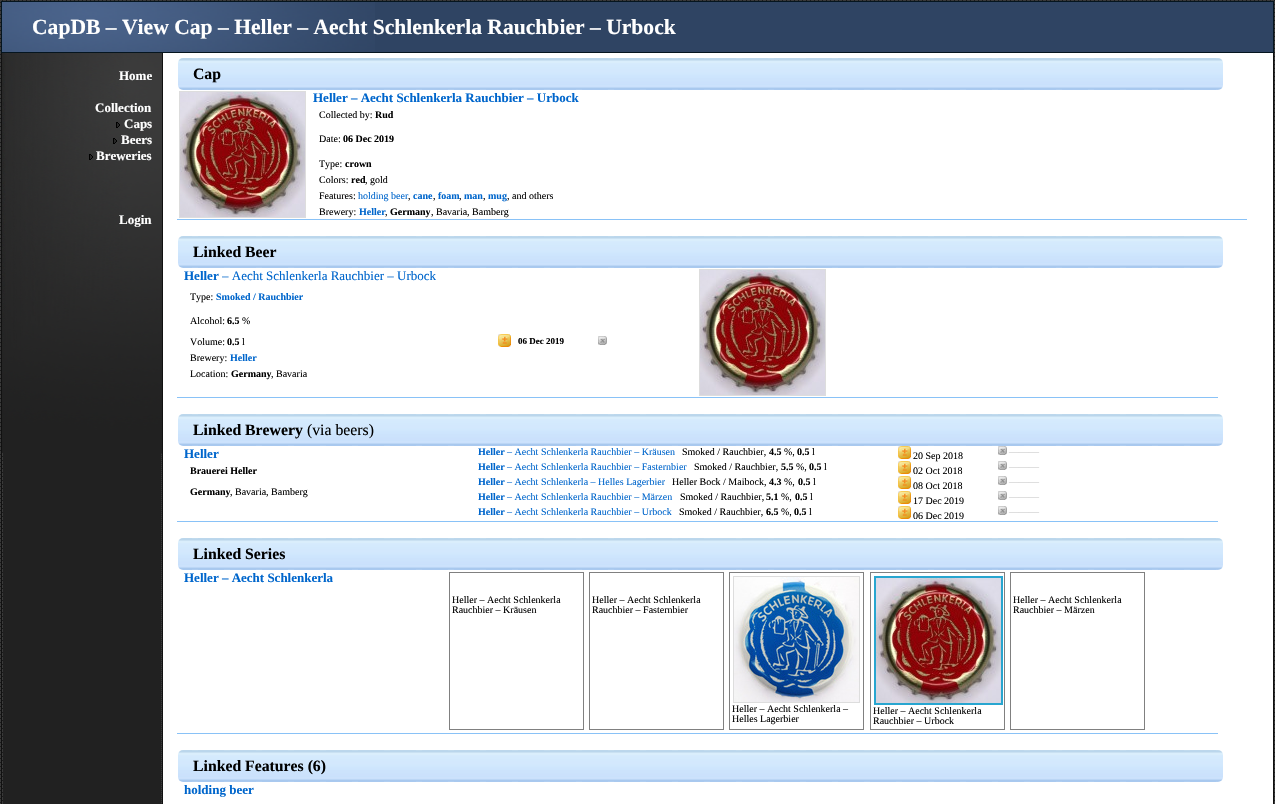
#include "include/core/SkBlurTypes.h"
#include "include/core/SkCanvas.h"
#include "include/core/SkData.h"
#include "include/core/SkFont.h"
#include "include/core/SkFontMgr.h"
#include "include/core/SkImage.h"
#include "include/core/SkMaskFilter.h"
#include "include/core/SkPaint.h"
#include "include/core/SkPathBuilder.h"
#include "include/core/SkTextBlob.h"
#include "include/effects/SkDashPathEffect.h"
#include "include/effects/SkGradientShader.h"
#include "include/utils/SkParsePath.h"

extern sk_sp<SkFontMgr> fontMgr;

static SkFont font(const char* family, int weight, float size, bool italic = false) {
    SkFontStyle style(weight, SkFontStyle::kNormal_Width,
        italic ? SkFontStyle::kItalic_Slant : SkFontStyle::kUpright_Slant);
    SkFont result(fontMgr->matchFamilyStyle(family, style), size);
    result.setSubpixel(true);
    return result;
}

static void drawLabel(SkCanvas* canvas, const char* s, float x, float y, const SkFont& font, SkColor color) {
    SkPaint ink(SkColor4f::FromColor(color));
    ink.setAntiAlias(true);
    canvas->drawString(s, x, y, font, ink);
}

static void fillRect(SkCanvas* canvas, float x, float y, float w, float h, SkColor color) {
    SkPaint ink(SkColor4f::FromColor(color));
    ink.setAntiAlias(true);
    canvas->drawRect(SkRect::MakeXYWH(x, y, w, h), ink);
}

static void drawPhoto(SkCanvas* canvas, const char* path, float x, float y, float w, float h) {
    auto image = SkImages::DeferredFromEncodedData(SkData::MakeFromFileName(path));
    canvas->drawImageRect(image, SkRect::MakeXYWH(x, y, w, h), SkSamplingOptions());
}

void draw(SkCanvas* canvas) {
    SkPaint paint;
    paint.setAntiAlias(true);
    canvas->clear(0xFFFFFFFF);
    drawPhoto(canvas, "assets/img1.png", 0, 0, 1275, 804);
    fillRect(canvas, 375, 2, 898, 50, 0xFF2F4463);
    drawPhoto(canvas, "assets/img2.png", 2, 2, 373, 50);
    fillRect(canvas, 1, 1, 1273, 1, 0xFF05151F);
    fillRect(canvas, 1273, 52, 1, 752, 0xFF111111);
    fillRect(canvas, 1273, 1, 1, 52, 0xFF05151F);
    fillRect(canvas, 162, 52, 1, 752, 0xFF111111);
    fillRect(canvas, 1, 52, 1, 752, 0xFF111111);
    fillRect(canvas, 1, 52, 1273, 1, 0xFF05151F);
    fillRect(canvas, 1, 1, 1, 52, 0xFF05151F);
    SkFont font1 = font("Liberation Serif", 700, 21.6f);
    drawLabel(canvas, "CapDB – View Cap – Heller – Aecht Schlenkerla Rauchbier – Urbock", 32, 34, font1, 0xFFFFFFFF);
    fillRect(canvas, 3, 453, 158, 351, 0xFF212121);
    drawPhoto(canvas, "assets/img3.png", 2, 53, 160, 400);
    SkFont font2 = font("Liberation Serif", 700, 13);
    drawLabel(canvas, "Home", 119, 80, font2, 0xFFFFFFFF);
    drawLabel(canvas, "Collection", 95, 112, font2, 0xFFFFFFFF);
    drawPhoto(canvas, "assets/img4.png", 116, 122, 4, 6);
    drawLabel(canvas, "Caps", 124, 128, font2, 0xFFFFFFFF);
    drawPhoto(canvas, "assets/img5.png", 113, 138, 4, 6);
    drawLabel(canvas, "Beers", 121, 144, font2, 0xFFFFFFFF);
    drawPhoto(canvas, "assets/img6.png", 89, 154, 4, 6);
    drawLabel(canvas, "Breweries", 96, 160, font2, 0xFFFFFFFF);
    drawLabel(canvas, "Login", 119, 224, font2, 0xFFFFFFFF);
    fillRect(canvas, 163, 53, 1110, 751, 0xFFFFFFFF);
    drawPhoto(canvas, "assets/img7.png", 178, 58, 1045, 32);
    SkFont font3 = font("Liberation Serif", 700, 15.75f);
    drawLabel(canvas, "Cap", 193, 79, font3, 0xFF000000);
    paint.setStroke(true);
    paint.setStrokeWidth(1);
    paint.setColor(0xFFDDDDDD);
    canvas->drawRect(SkRect::MakeXYWH(179.5f, 91.5f, 126, 126), paint);
    drawPhoto(canvas, "assets/img8.png", 180, 92, 125, 125);
    drawLabel(canvas, "Heller – Aecht Schlenkerla Rauchbier – Urbock", 313, 102, font2, 0xFF0066CC);
    SkFont font4 = font("Liberation Serif", 400, 10);
    drawLabel(canvas, "Collected by:", 319, 118, font4, 0xFF000000);
    SkFont font5 = font("Liberation Serif", 700, 10);
    drawLabel(canvas, "Rud", 375, 118, font5, 0xFF000000);
    drawLabel(canvas, "Date:", 319, 142, font4, 0xFF000000);
    drawLabel(canvas, "06 Dec 2019", 343, 142, font5, 0xFF000000);
    drawLabel(canvas, "Type:", 319, 167, font4, 0xFF000000);
    drawLabel(canvas, "crown", 345, 167, font5, 0xFF000000);
    drawLabel(canvas, "Colors:", 319, 183, font4, 0xFF000000);
    drawLabel(canvas, "red", 351, 183, font5, 0xFF000000);
    drawLabel(canvas, ", gold", 365, 183, font4, 0xFF000000);
    drawLabel(canvas, "Features:", 319, 199, font4, 0xFF000000);
    drawLabel(canvas, "holding beer", 358, 199, font4, 0xFF0066CC);
    drawLabel(canvas, ",", 408, 199, font4, 0xFF000000);
    drawLabel(canvas, "cane", 413, 199, font5, 0xFF0066CC);
    drawLabel(canvas, ",", 433, 199, font4, 0xFF000000);
    drawLabel(canvas, "foam", 438, 199, font5, 0xFF0066CC);
    drawLabel(canvas, ",", 459, 199, font4, 0xFF000000);
    drawLabel(canvas, "man", 464, 199, font5, 0xFF0066CC);
    drawLabel(canvas, ",", 483, 199, font4, 0xFF000000);
    drawLabel(canvas, "mug", 488, 199, font5, 0xFF0066CC);
    drawLabel(canvas, ", and others", 507, 199, font4, 0xFF000000);
    drawLabel(canvas, "Brewery:", 319, 215, font4, 0xFF000000);
    drawLabel(canvas, "Heller", 359, 215, font5, 0xFF0066CC);
    drawLabel(canvas, ",", 385, 215, font4, 0xFF000000);
    drawLabel(canvas, "Germany", 390, 215, font5, 0xFF000000);
    drawLabel(canvas, ", Bavaria, Bamberg", 431, 215, font4, 0xFF000000);
    fillRect(canvas, 177, 219, 1070, 1, 0xFF89C2F7);
    drawPhoto(canvas, "assets/img7.png", 178, 236, 1045, 32);
    drawLabel(canvas, "Linked Beer", 193, 257, font3, 0xFF000000);
    drawLabel(canvas, "Heller", 184, 280, font2, 0xFF0066CC);
    SkFont font6 = font("Liberation Serif", 400, 13);
    drawLabel(canvas, "– Aecht Schlenkerla Rauchbier – Urbock", 222, 280, font6, 0xFF0066CC);
    canvas->drawRect(SkRect::MakeXYWH(699.5f, 269.5f, 126, 126), paint);
    drawPhoto(canvas, "assets/img8.png", 700, 270, 125, 125);
    drawLabel(canvas, "Type:", 190, 300, font4, 0xFF000000);
    drawLabel(canvas, "Smoked / Rauchbier", 216, 300, font5, 0xFF0066CC);
    drawPhoto(canvas, "assets/img9.png", 498, 334, 13, 13);
    SkFont font7 = font("Liberation Serif", 700, 9);
    drawLabel(canvas, "06 Dec 2019", 518, 344, font7, 0xFF000000);
    drawPhoto(canvas, "assets/img10.png", 598, 336, 9, 9);
    drawLabel(canvas, "Alcohol:", 190, 324, font4, 0xFF000000);
    drawLabel(canvas, "6.5", 227, 324, font5, 0xFF000000);
    drawLabel(canvas, "%", 242, 324, font4, 0xFF000000);
    drawLabel(canvas, "Volume:", 190, 345, font4, 0xFF000000);
    drawLabel(canvas, "0.5", 227, 345, font5, 0xFF000000);
    drawLabel(canvas, "l", 242, 345, font4, 0xFF000000);
    drawLabel(canvas, "Brewery:", 190, 361, font4, 0xFF000000);
    drawLabel(canvas, "Heller", 230, 361, font5, 0xFF0066CC);
    drawLabel(canvas, "Location:", 190, 377, font4, 0xFF000000);
    drawLabel(canvas, "Germany", 231, 377, font5, 0xFF000000);
    drawLabel(canvas, ", Bavaria", 271, 377, font4, 0xFF000000);
    fillRect(canvas, 177, 397, 1041, 1, 0xFF89C2F7);
    drawPhoto(canvas, "assets/img7.png", 178, 414, 1045, 32);
    drawLabel(canvas, "Linked Brewery", 193, 435, font3, 0xFF000000);
    SkFont font8 = font("Liberation Serif", 400, 15.75f);
    drawLabel(canvas, "(via beers)", 307, 435, font8, 0xFF000000);
    drawLabel(canvas, "Heller", 184, 458, font2, 0xFF0066CC);
    drawLabel(canvas, "Heller", 478, 455, font5, 0xFF0066CC);
    drawLabel(canvas, "– Aecht Schlenkerla Rauchbier – Kräusen", 507, 455, font4, 0xFF0066CC);
    drawLabel(canvas, "Smoked / Rauchbier,", 682, 455, font4, 0xFF000000);
    drawLabel(canvas, "4.5", 769, 455, font5, 0xFF000000);
    drawLabel(canvas, "%,", 784, 455, font4, 0xFF000000);
    drawLabel(canvas, "0.5", 797, 455, font5, 0xFF000000);
    drawLabel(canvas, "l", 812, 455, font4, 0xFF000000);
    drawPhoto(canvas, "assets/img9.png", 898, 446, 13, 13);
    drawLabel(canvas, "20 Sep 2018", 913, 459, font4, 0xFF000000);
    drawPhoto(canvas, "assets/img10.png", 998, 446, 9, 9);
    drawLabel(canvas, "———", 1009, 455, font4, 0xFFCCCCCC);
    drawLabel(canvas, "Heller", 478, 470, font5, 0xFF0066CC);
    drawLabel(canvas, "– Aecht Schlenkerla Rauchbier – Fasternbier", 507, 470, font4, 0xFF0066CC);
    drawLabel(canvas, "Smoked / Rauchbier,", 694, 470, font4, 0xFF000000);
    drawLabel(canvas, "5.5", 781, 470, font5, 0xFF000000);
    drawLabel(canvas, "%,", 796, 470, font4, 0xFF000000);
    drawLabel(canvas, "0.5", 809, 470, font5, 0xFF000000);
    drawLabel(canvas, "l", 824, 470, font4, 0xFF000000);
    drawPhoto(canvas, "assets/img9.png", 898, 461, 13, 13);
    drawLabel(canvas, "02 Oct 2018", 913, 474, font4, 0xFF000000);
    drawPhoto(canvas, "assets/img10.png", 998, 461, 9, 9);
    drawLabel(canvas, "———", 1009, 470, font4, 0xFFCCCCCC);
    drawLabel(canvas, "Heller", 478, 485, font5, 0xFF0066CC);
    drawLabel(canvas, "– Aecht Schlenkerla – Helles Lagerbier", 507, 485, font4, 0xFF0066CC);
    drawLabel(canvas, "Heller Bock / Maibock,", 672, 485, font4, 0xFF000000);
    drawLabel(canvas, "4.3", 769, 485, font5, 0xFF000000);
    drawLabel(canvas, "%,", 784, 485, font4, 0xFF000000);
    drawLabel(canvas, "0.5", 798, 485, font5, 0xFF000000);
    drawLabel(canvas, "l", 813, 485, font4, 0xFF000000);
    drawPhoto(canvas, "assets/img9.png", 898, 476, 13, 13);
    drawLabel(canvas, "08 Oct 2018", 913, 489, font4, 0xFF000000);
    drawPhoto(canvas, "assets/img10.png", 998, 476, 9, 9);
    drawLabel(canvas, "———", 1009, 485, font4, 0xFFCCCCCC);
    drawLabel(canvas, "Heller", 478, 500, font5, 0xFF0066CC);
    drawLabel(canvas, "– Aecht Schlenkerla Rauchbier – Märzen", 507, 500, font4, 0xFF0066CC);
    drawLabel(canvas, "Smoked / Rauchbier,", 680, 500, font4, 0xFF000000);
    drawLabel(canvas, "5.1", 766, 500, font5, 0xFF000000);
    drawLabel(canvas, "%,", 781, 500, font4, 0xFF000000);
    drawLabel(canvas, "0.5", 795, 500, font5, 0xFF000000);
    drawLabel(canvas, "l", 810, 500, font4, 0xFF000000);
    drawPhoto(canvas, "assets/img9.png", 898, 491, 13, 13);
    drawLabel(canvas, "17 Dec 2019", 913, 504, font4, 0xFF000000);
    drawPhoto(canvas, "assets/img10.png", 998, 491, 9, 9);
    drawLabel(canvas, "———", 1009, 500, font4, 0xFFCCCCCC);
    drawLabel(canvas, "Heller", 478, 515, font5, 0xFF0066CC);
    drawLabel(canvas, "– Aecht Schlenkerla Rauchbier – Urbock", 507, 515, font4, 0xFF0066CC);
    drawLabel(canvas, "Smoked / Rauchbier,", 679, 515, font4, 0xFF000000);
    drawLabel(canvas, "6.5", 766, 515, font5, 0xFF000000);
    drawLabel(canvas, "%,", 781, 515, font4, 0xFF000000);
    drawLabel(canvas, "0.5", 794, 515, font5, 0xFF000000);
    drawLabel(canvas, "l", 809, 515, font4, 0xFF000000);
    drawPhoto(canvas, "assets/img9.png", 898, 506, 13, 13);
    drawLabel(canvas, "06 Dec 2019", 913, 519, font4, 0xFF000000);
    drawPhoto(canvas, "assets/img10.png", 998, 506, 9, 9);
    drawLabel(canvas, "———", 1009, 515, font4, 0xFFCCCCCC);
    drawLabel(canvas, "Brauerei Heller", 190, 474, font5, 0xFF000000);
    drawLabel(canvas, "Germany", 190, 495, font5, 0xFF000000);
    drawLabel(canvas, ", Bavaria, Bamberg", 230, 495, font4, 0xFF000000);
    fillRect(canvas, 177, 521, 1041, 1, 0xFF89C2F7);
    drawPhoto(canvas, "assets/img7.png", 178, 538, 1045, 32);
    drawLabel(canvas, "Linked Series", 193, 559, font3, 0xFF000000);
    drawLabel(canvas, "Heller – Aecht Schlenkerla", 184, 582, font2, 0xFF0066CC);
    paint.setColor(0xFF808080);
    canvas->drawRect(SkRect::MakeXYWH(449.5f, 572.5f, 134, 157), paint);
    drawLabel(canvas, "Heller – Aecht Schlenkerla", 452, 603, font4, 0xFF000000);
    drawLabel(canvas, "Rauchbier – Kräusen", 452, 613, font4, 0xFF000000);
    canvas->drawRect(SkRect::MakeXYWH(589.5f, 572.5f, 134, 157), paint);
    drawLabel(canvas, "Heller – Aecht Schlenkerla", 592, 603, font4, 0xFF000000);
    drawLabel(canvas, "Rauchbier – Fasternbier", 592, 613, font4, 0xFF000000);
    canvas->drawRect(SkRect::MakeXYWH(1010.5f, 572.5f, 134, 157), paint);
    drawLabel(canvas, "Heller – Aecht Schlenkerla", 1013, 603, font4, 0xFF000000);
    drawLabel(canvas, "Rauchbier – Märzen", 1013, 613, font4, 0xFF000000);
    canvas->drawRect(SkRect::MakeXYWH(729.5f, 572.5f, 134, 157), paint);
    paint.setColor(0xFFDDDDDD);
    canvas->drawRect(SkRect::MakeXYWH(733.5f, 576.5f, 126, 126), paint);
    drawPhoto(canvas, "assets/img11.png", 734, 577, 125, 125);
    drawLabel(canvas, "Heller – Aecht Schlenkerla –", 732, 712, font4, 0xFF000000);
    drawLabel(canvas, "Helles Lagerbier", 732, 722, font4, 0xFF000000);
    paint.setColor(0xFF808080);
    canvas->drawRect(SkRect::MakeXYWH(870.5f, 572.5f, 134, 157), paint);
    paint.setStrokeWidth(2);
    paint.setColor(0xFF28A6D0);
    canvas->drawRect(SkRect::MakeXYWH(875, 577, 127, 127), paint);
    drawPhoto(canvas, "assets/img8.png", 876, 578, 125, 125);
    drawLabel(canvas, "Heller – Aecht Schlenkerla", 873, 714, font4, 0xFF000000);
    drawLabel(canvas, "Rauchbier – Urbock", 873, 724, font4, 0xFF000000);
    fillRect(canvas, 177, 733, 1041, 1, 0xFF89C2F7);
    drawPhoto(canvas, "assets/img7.png", 178, 750, 1045, 32);
    drawLabel(canvas, "Linked Features (6)", 193, 771, font3, 0xFF000000);
    drawLabel(canvas, "holding beer", 184, 794, font2, 0xFF0066CC);
}
